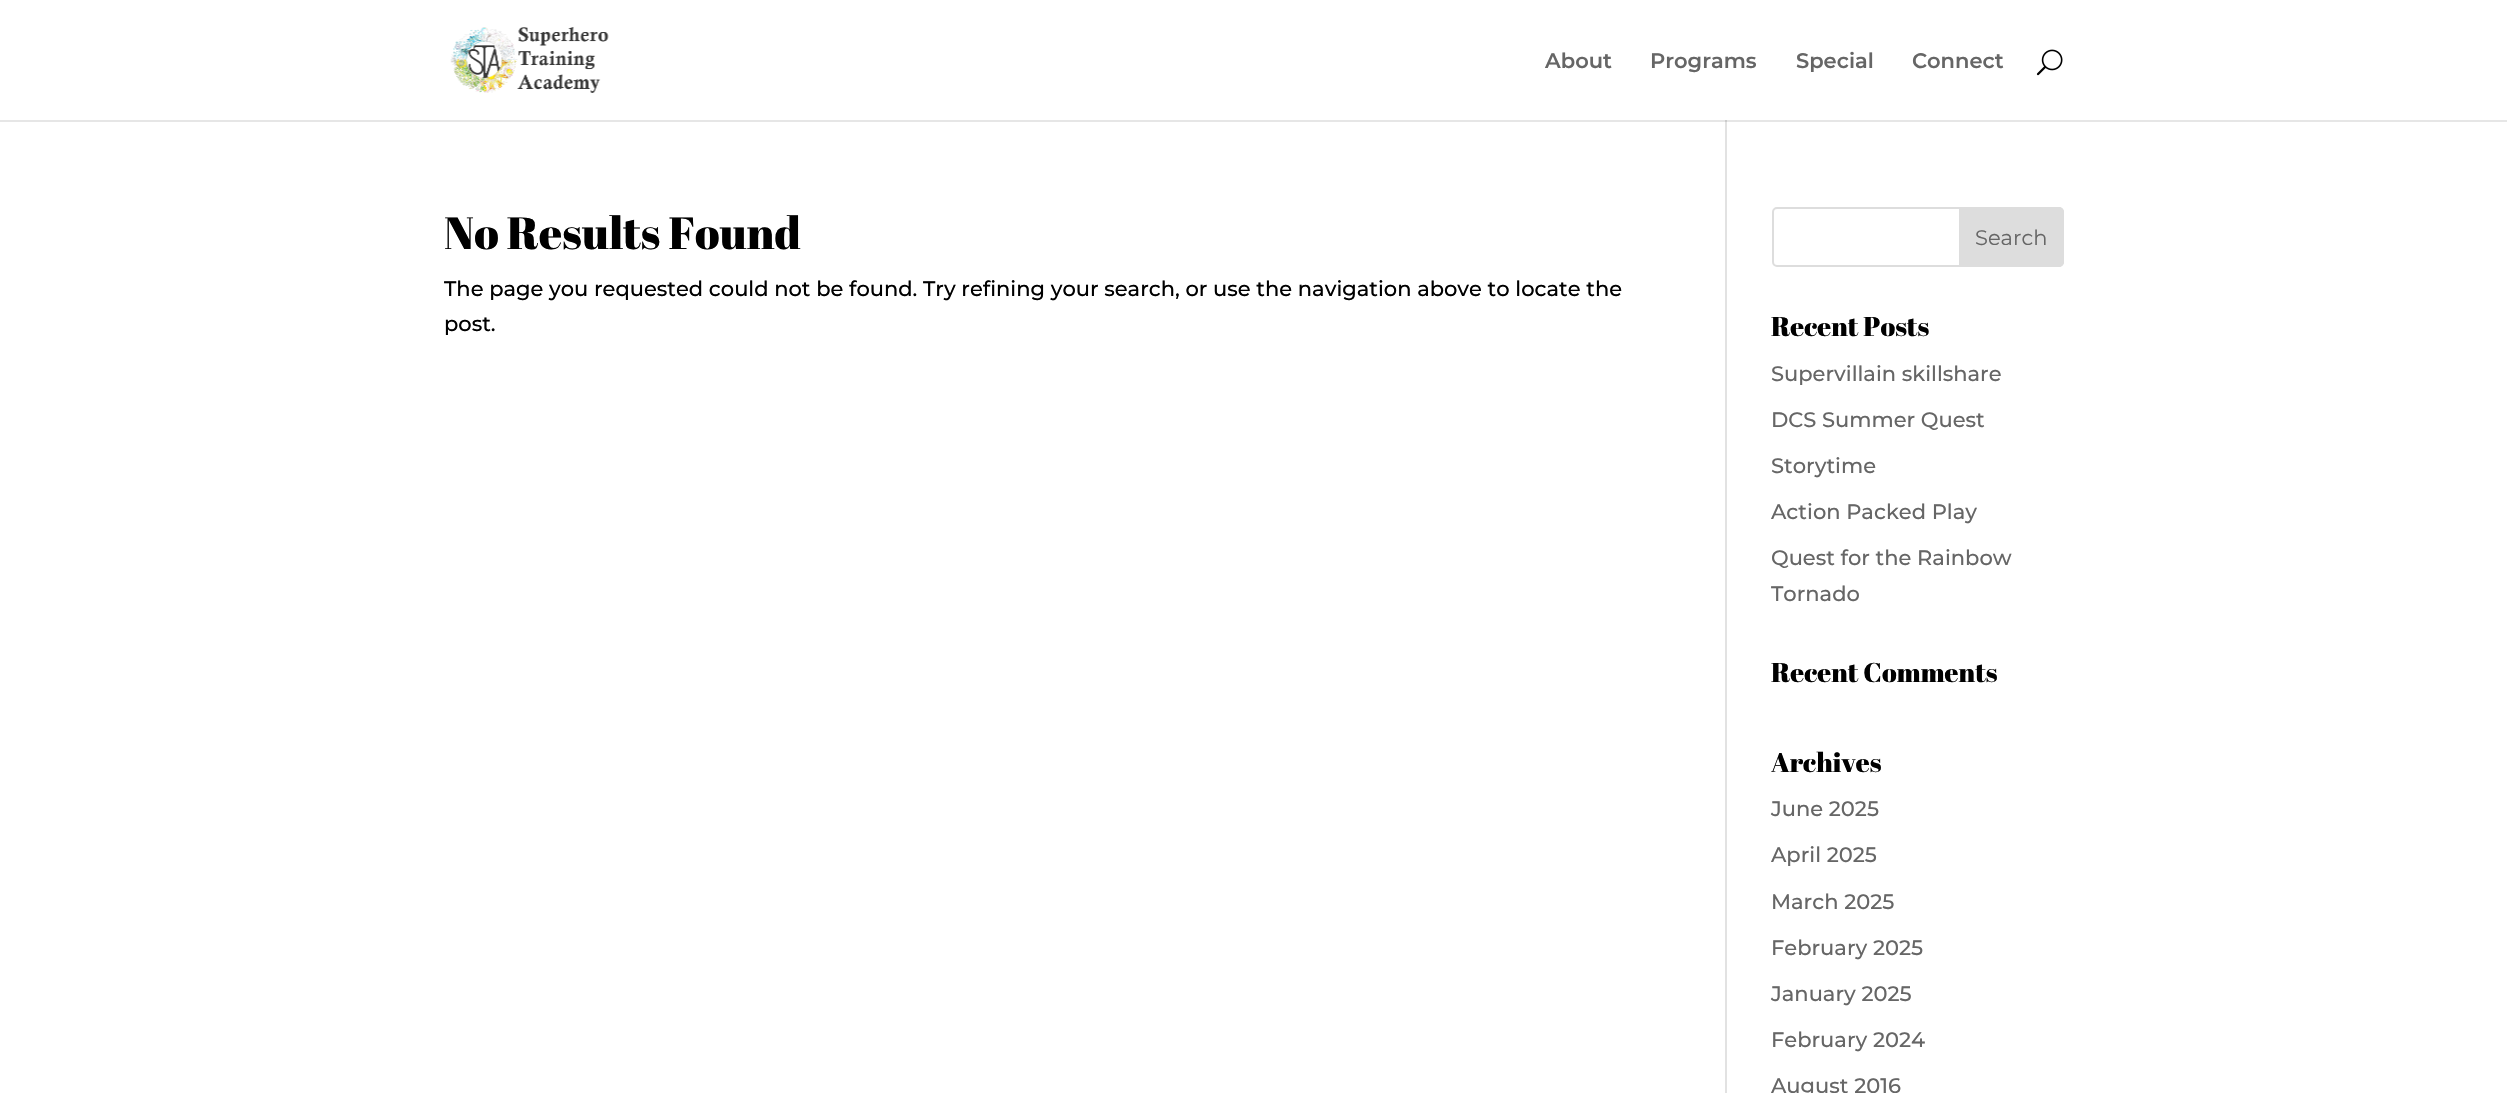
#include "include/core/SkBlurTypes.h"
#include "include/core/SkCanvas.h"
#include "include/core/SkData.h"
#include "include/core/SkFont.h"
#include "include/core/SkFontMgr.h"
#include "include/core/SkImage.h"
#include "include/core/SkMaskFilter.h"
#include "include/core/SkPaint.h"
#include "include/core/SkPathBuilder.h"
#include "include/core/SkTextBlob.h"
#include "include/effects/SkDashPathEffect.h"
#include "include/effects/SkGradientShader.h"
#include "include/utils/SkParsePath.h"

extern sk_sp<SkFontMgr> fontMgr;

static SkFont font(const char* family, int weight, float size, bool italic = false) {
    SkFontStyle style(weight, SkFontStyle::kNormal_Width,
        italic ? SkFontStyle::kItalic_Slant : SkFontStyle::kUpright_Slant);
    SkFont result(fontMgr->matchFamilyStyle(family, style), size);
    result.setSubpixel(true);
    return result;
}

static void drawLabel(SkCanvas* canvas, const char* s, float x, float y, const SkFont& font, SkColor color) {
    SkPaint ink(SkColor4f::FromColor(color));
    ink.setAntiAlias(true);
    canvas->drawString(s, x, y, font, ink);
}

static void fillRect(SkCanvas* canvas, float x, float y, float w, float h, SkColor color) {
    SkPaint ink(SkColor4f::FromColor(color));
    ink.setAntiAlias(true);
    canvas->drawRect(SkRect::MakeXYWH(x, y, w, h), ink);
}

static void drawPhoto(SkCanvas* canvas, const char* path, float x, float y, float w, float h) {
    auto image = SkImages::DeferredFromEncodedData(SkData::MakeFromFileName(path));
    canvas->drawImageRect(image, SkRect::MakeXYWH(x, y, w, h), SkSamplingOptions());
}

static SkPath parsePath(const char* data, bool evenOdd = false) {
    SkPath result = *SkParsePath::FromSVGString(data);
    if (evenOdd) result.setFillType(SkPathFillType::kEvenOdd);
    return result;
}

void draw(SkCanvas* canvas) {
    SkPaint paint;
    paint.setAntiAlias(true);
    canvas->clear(0xFFFFFFFF);
    fillRect(canvas, 0, 120, 2507, 2, 0xFFE6E6E6);
    drawPhoto(canvas, "assets/img1.png", 450, 27, 159, 66);
    SkFont font1 = font("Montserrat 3", 100, 21);
    drawLabel(canvas, "About", 1545, 68, font1, 0xFF666666);
    drawLabel(canvas, "Programs", 1650, 68, font1, 0xFF666666);
    drawLabel(canvas, "Special", 1796, 68, font1, 0xFF666666);
    drawLabel(canvas, "Connect", 1912, 68, font1, 0xFF666666);
    drawPhoto(canvas, "assets/img2.png", 2036, 49, 27, 27);
    fillRect(canvas, 1725, 120, 2, 973, 0xFFE2E2E2);
    fillRect(canvas, 1725, 120, 2, 2, 0xFFCBCBCB);
    SkFont font2 = font("Abril Fatface", 400, 45);
    drawLabel(canvas, "No Results Found", 444, 249, font2, 0xFF000000);
    SkFont font3 = font("Montserrat", 100, 21);
    drawLabel(canvas, "The page you requested could not be found. Try refining your search, or use the navigation above to locate the", 444, 296, font3, 0xFF000000);
    drawLabel(canvas, "post.", 444, 331, font3, 0xFF000000);
    paint.setStroke(true);
    paint.setStrokeWidth(2);
    paint.setColor(0xFFDDDDDD);
    canvas->drawRoundRect(SkRect::MakeXYWH(1773, 208, 290, 58), 4, 4, paint);
    paint.setStroke(false);
    canvas->drawPath(parsePath("M1960 208H2059C2061 208 2063 210 2063 212V262C2063 264 2061 266 2059 266H1960Z"), paint);
    paint.setStroke(true);
    canvas->drawPath(parsePath("M1960 208H2059C2061 208 2063 210 2063 212V262C2063 264 2061 266 2059 266H1960Z"), paint);
    SkFont font4 = font("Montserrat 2", 100, 21);
    drawLabel(canvas, "Search", 1975, 245, font4, 0xFF666666);
    SkFont font5 = font("Abril Fatface", 400, 27);
    drawLabel(canvas, "Recent Posts", 1771, 336, font5, 0xFF000000);
    drawLabel(canvas, "Supervillain skillshare", 1771, 381, font3, 0xFF666666);
    drawLabel(canvas, "DCS Summer Quest", 1771, 427, font3, 0xFF666666);
    drawLabel(canvas, "Storytime", 1771, 473, font3, 0xFF666666);
    drawLabel(canvas, "Action Packed Play", 1771, 519, font3, 0xFF666666);
    drawLabel(canvas, "Quest for the Rainbow", 1771, 565, font3, 0xFF666666);
    drawLabel(canvas, "Tornado", 1771, 601, font3, 0xFF666666);
    drawLabel(canvas, "Recent Comments", 1771, 682, font5, 0xFF000000);
    drawLabel(canvas, "Archives", 1771, 772, font5, 0xFF000000);
    drawLabel(canvas, "June 2025", 1771, 816, font3, 0xFF666666);
    drawLabel(canvas, "April 2025", 1771, 862, font3, 0xFF666666);
    drawLabel(canvas, "March 2025", 1771, 909, font3, 0xFF666666);
    drawLabel(canvas, "February 2025", 1771, 955, font3, 0xFF666666);
    drawLabel(canvas, "January 2025", 1771, 1001, font3, 0xFF666666);
    drawLabel(canvas, "February 2024", 1771, 1047, font3, 0xFF666666);
    drawLabel(canvas, "August 2016", 1771, 1093, font3, 0xFF666666);
}
